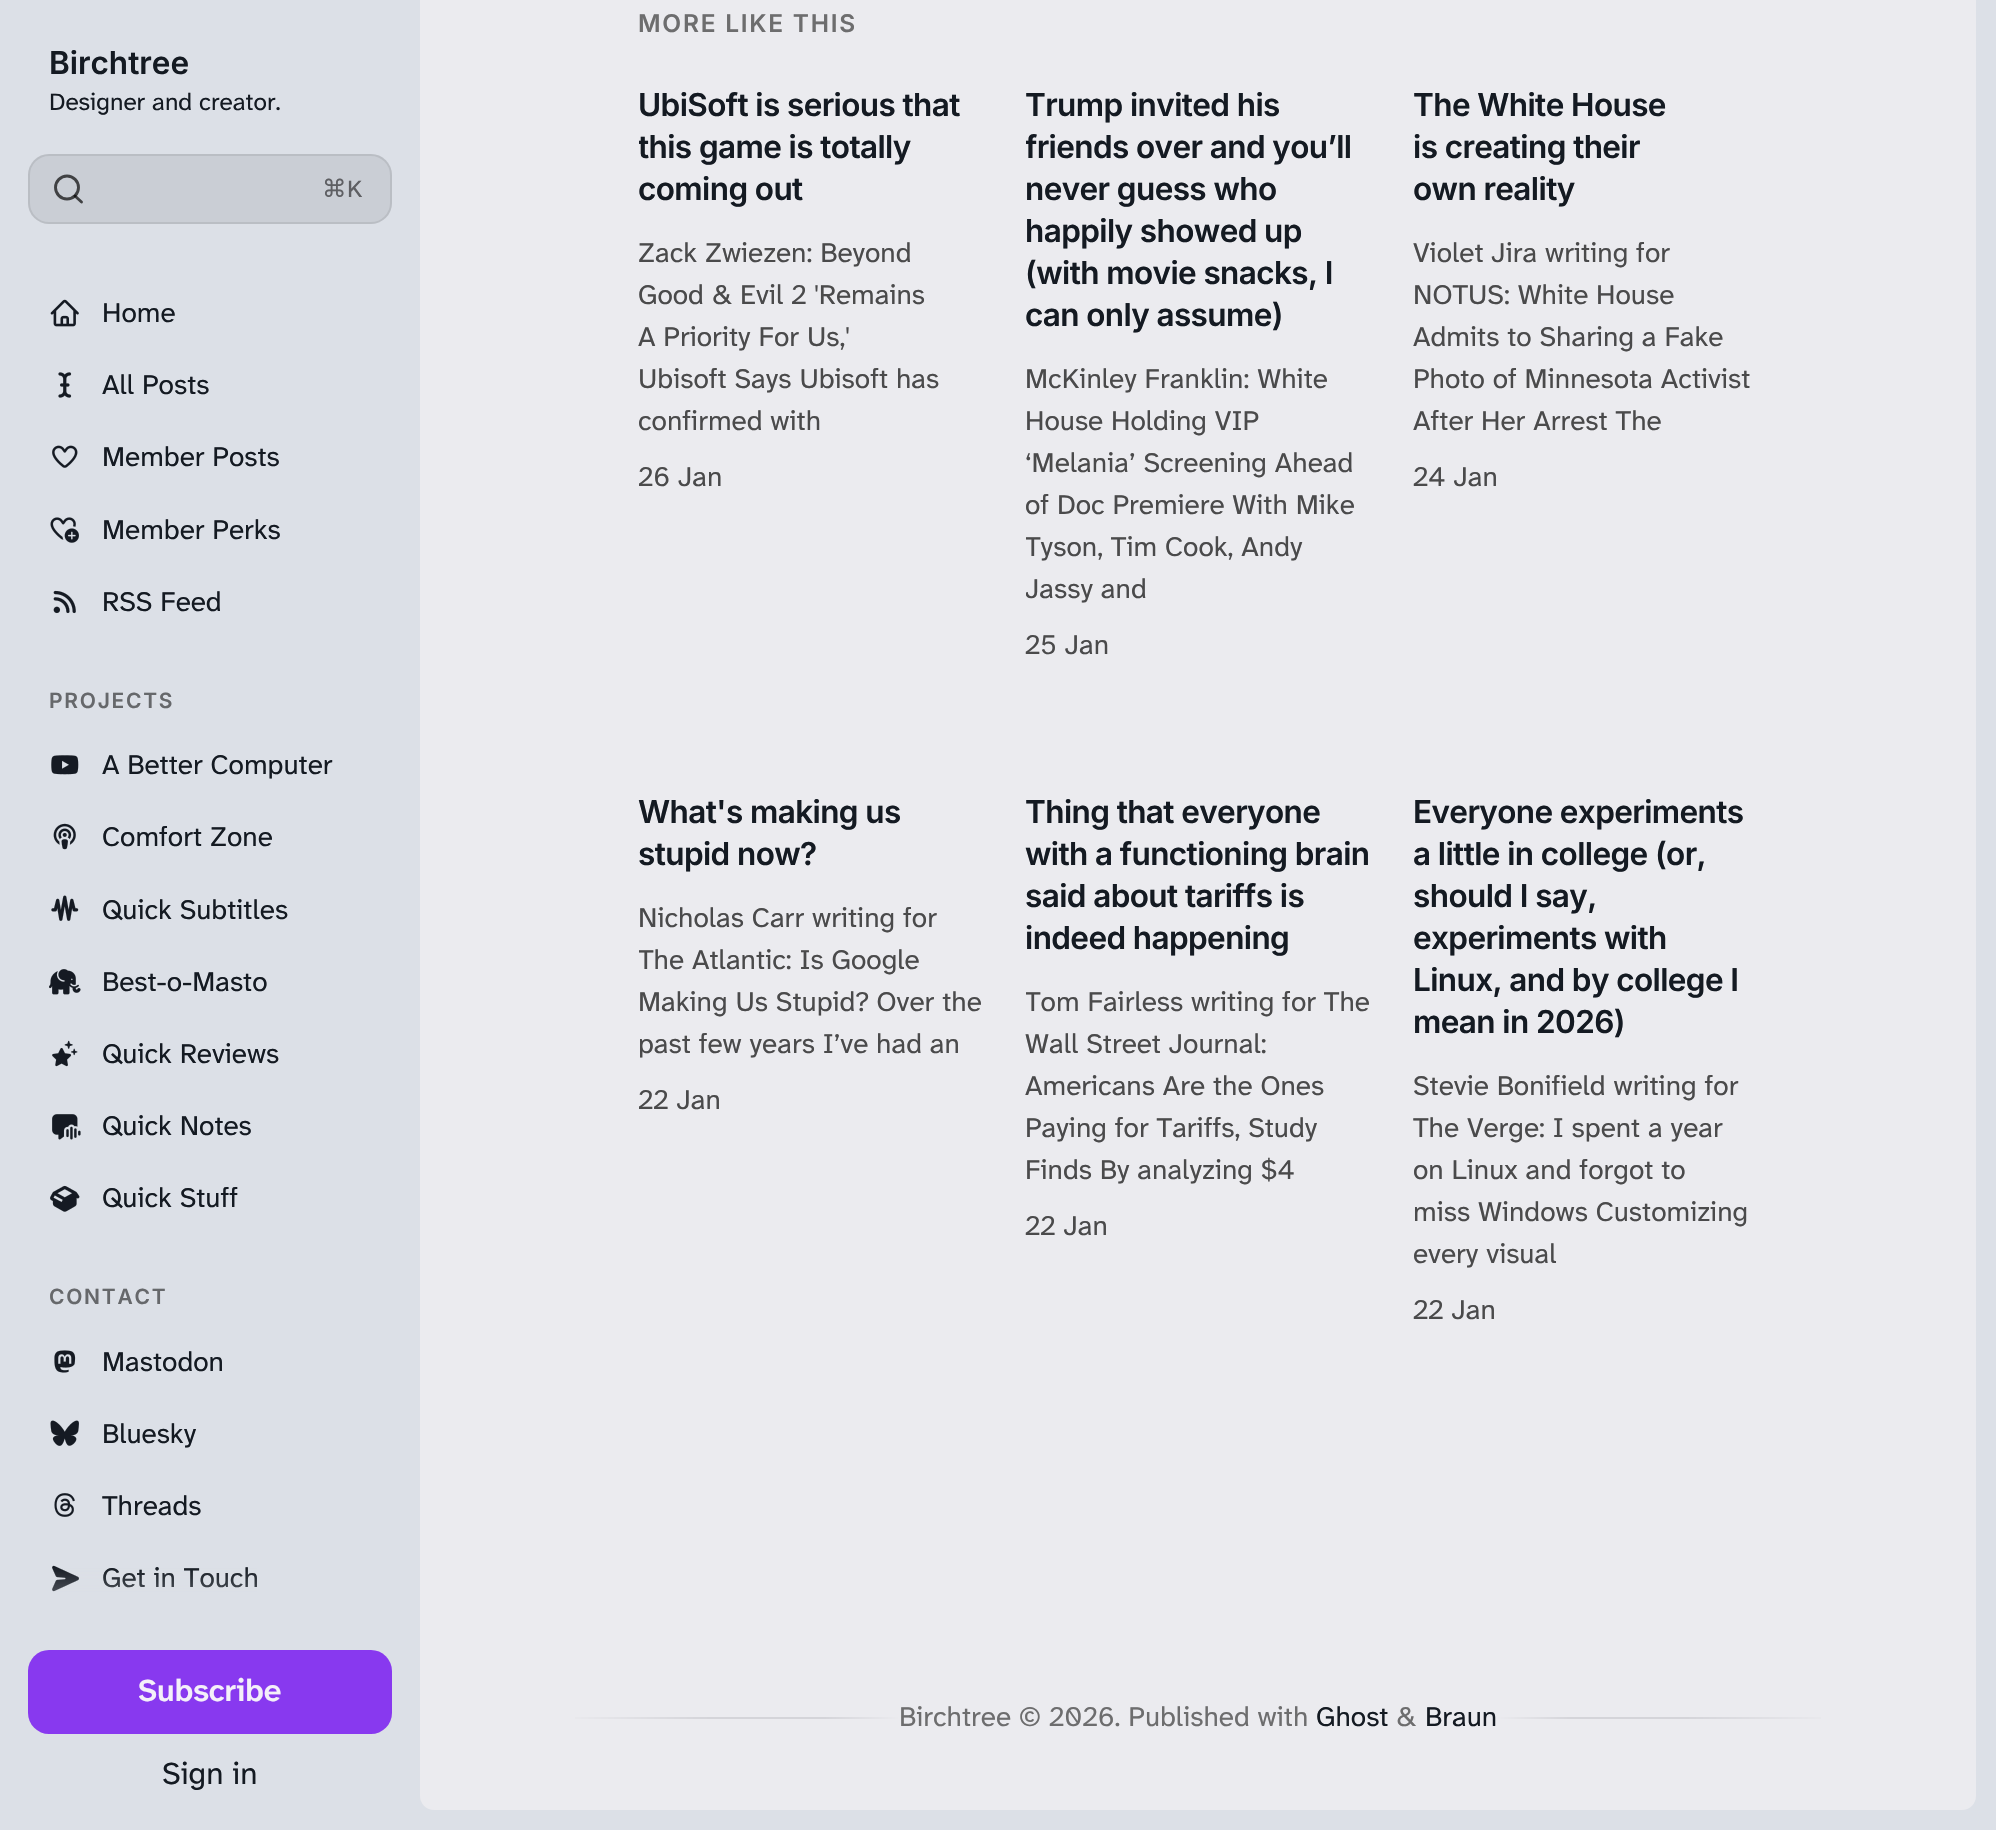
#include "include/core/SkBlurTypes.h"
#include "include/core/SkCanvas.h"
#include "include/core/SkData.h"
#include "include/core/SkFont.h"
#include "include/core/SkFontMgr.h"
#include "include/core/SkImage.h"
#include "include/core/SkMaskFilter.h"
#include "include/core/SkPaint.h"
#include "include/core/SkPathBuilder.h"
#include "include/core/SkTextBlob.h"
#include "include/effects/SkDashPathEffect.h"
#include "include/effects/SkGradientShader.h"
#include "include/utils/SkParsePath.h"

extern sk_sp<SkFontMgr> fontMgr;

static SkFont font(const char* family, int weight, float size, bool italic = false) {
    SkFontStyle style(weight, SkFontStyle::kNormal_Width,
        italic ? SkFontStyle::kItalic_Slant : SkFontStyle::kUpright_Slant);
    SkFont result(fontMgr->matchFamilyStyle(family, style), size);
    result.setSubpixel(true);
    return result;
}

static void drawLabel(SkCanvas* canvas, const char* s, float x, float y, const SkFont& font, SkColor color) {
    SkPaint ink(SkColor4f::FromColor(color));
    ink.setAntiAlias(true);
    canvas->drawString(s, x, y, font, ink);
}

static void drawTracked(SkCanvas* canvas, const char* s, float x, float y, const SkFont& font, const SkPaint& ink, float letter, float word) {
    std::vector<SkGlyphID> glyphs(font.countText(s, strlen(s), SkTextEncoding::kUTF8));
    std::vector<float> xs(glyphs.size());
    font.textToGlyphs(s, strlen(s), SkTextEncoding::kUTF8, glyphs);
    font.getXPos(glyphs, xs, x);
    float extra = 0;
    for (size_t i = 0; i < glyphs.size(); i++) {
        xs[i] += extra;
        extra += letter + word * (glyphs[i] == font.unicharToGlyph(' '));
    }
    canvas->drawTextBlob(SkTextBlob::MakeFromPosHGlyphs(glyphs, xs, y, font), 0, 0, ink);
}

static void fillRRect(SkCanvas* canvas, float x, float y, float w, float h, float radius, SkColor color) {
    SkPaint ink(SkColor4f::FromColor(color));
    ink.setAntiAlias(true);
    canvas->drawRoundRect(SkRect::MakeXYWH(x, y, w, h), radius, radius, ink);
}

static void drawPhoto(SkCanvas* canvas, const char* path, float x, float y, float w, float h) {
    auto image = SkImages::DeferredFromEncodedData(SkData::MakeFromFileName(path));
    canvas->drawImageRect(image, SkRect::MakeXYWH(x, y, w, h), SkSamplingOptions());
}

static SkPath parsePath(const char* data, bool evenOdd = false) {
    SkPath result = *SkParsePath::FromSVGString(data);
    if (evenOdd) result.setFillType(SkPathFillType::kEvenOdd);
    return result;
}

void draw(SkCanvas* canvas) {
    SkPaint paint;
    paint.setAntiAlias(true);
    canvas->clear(0xFFDCE0E7);
    SkFont font1 = font("Inter", 600, 31.5f);
    drawLabel(canvas, "Birchtree", 49, 74, font1, 0xFF141A22);
    SkFont font2 = font("Atkinson Hyperlegible Next", 400, 24.5f);
    drawLabel(canvas, "Designer and creator.", 49, 110, font2, 0xFF141A22);
    fillRRect(canvas, 28, 154, 364, 70, 21, 0xFFCACED5);
    paint.setStroke(true);
    paint.setStrokeWidth(2);
    paint.setColor(0x14000000);
    canvas->drawRoundRect(SkRect::MakeXYWH(29, 155, 362, 68), 20, 20, paint);
    paint.setStrokeWidth(2.9f);
    paint.setColor(0xFF404143);
    canvas->drawCircle(67, 187.5f, 11.5f, paint);
    paint.setStrokeCap(SkPaint::kRound_Cap);
    paint.setStrokeJoin(SkPaint::kRound_Join);
    paint.setColor(0xB3050505);
    canvas->drawPath(parsePath("M81.5 202L75 196"), paint);
    SkFont font3 = font("DejaVu Sans", 400, 24.5f);
    drawLabel(canvas, "⌘", 322, 197, font3, 0xFF5E5F63);
    drawLabel(canvas, "K", 347, 197, font2, 0xFF5E5F63);
    drawPhoto(canvas, "assets/img1.png", 50, 299, 29, 28);
    SkFont font4 = font("Atkinson Hyperlegible Next", 400, 28);
    drawLabel(canvas, "Home", 102, 322, font4, 0xFF141A22);
    drawPhoto(canvas, "assets/img2.png", 58, 372, 14, 26);
    drawLabel(canvas, "All Posts", 102, 394, font4, 0xFF141A22);
    drawPhoto(canvas, "assets/img3.png", 52, 445, 26, 23);
    drawLabel(canvas, "Member Posts", 102, 466, font4, 0xFF141A22);
    drawPhoto(canvas, "assets/img4.png", 50, 517, 29, 26);
    drawLabel(canvas, "Member Perks", 102, 539, font4, 0xFF141A22);
    drawPhoto(canvas, "assets/img5.png", 53, 590, 23, 24);
    drawLabel(canvas, "RSS Feed", 102, 611, font4, 0xFF141A22);
    SkFont font5 = font("Inter", 600, 21);
    paint.setStroke(false);
    paint.setColor(0xFF66686B);
    drawTracked(canvas, "PROJECTS", 49, 708, font5, paint, 1.75f, 0);
    drawPhoto(canvas, "assets/img6.png", 51, 755, 28, 20);
    drawLabel(canvas, "A Better Computer", 102, 774, font4, 0xFF141A22);
    drawPhoto(canvas, "assets/img7.png", 53, 823, 23, 27);
    drawLabel(canvas, "Comfort Zone", 102, 846, font4, 0xFF141A22);
    drawPhoto(canvas, "assets/img8.png", 51, 895, 28, 26);
    drawLabel(canvas, "Quick Subtitles", 102, 919, font4, 0xFF141A22);
    drawPhoto(canvas, "assets/img9.png", 49, 969, 32, 26);
    drawLabel(canvas, "Best-o-Masto", 102, 991, font4, 0xFF141A22);
    drawPhoto(canvas, "assets/img10.png", 52, 1040, 26, 27);
    drawLabel(canvas, "Quick Reviews", 102, 1063, font4, 0xFF141A22);
    drawPhoto(canvas, "assets/img11.png", 52, 1114, 29, 26);
    drawLabel(canvas, "Quick Notes", 102, 1135, font4, 0xFF141A22);
    drawPhoto(canvas, "assets/img12.png", 50, 1185, 30, 27);
    drawLabel(canvas, "Quick Stuff", 102, 1207, font4, 0xFF141A22);
    drawTracked(canvas, "CONTACT", 49, 1304, font5, paint, 1.75f, 0);
    drawPhoto(canvas, "assets/img13.png", 54, 1350, 22, 23);
    drawLabel(canvas, "Mastodon", 102, 1371, font4, 0xFF141A22);
    drawPhoto(canvas, "assets/img14.png", 50, 1420, 29, 26);
    drawLabel(canvas, "Bluesky", 102, 1443, font4, 0xFF141A22);
    drawPhoto(canvas, "assets/img15.png", 54, 1493, 21, 24);
    drawLabel(canvas, "Threads", 102, 1515, font4, 0xFF141A22);
    drawPhoto(canvas, "assets/img16.png", 52, 1565, 27, 27);
    drawLabel(canvas, "Get in Touch", 102, 1587, font4, 0xFF141A22);
    {
        const SkColor colors[] = {0x00DCE0E7, 0x80DCE0E7, 0xFFDCE0E7, 0xFFDCE0E7};
        const float stops[] = {0, 0.2f, 0.35f, 1};
        const SkPoint ends[] = {{210, 1566}, {210, 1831}};
        paint.setShader(SkGradientShader::MakeLinear(ends, colors, stops, 4, SkTileMode::kClamp));
        paint.setAlpha(255);
    }
    canvas->drawRect(SkRect::MakeXYWH(52, 1568, 205, 24), paint);
    fillRRect(canvas, 28, 1650, 364, 84, 21, 0xFF8839EF);
    SkFont font6 = font("Atkinson Hyperlegible Next", 600, 31.5f);
    drawLabel(canvas, "Subscribe", 138, 1701, font6, 0xFFF4F0F9);
    SkFont font7 = font("Atkinson Hyperlegible Next", 400, 31.5f);
    drawLabel(canvas, "Sign in", 162, 1784, font7, 0xFF141A22);
    fillRRect(canvas, 420, -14, 1556, 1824, 14, 0xFFEBEBEF);
    SkFont font8 = font("Inter", 600, 24.5f);
    paint.setShader(nullptr);
    paint.setColor(0xFF6D6D6E);
    drawTracked(canvas, "MORE LIKE THIS", 638, 32, font8, paint, 1.75f, 0);
    paint.setColor(0xFF141A22);
    drawTracked(canvas, "UbiSoft is serious that", 638, 116, font1, paint, -0.6f, 0);
    canvas->save();
    canvas->clipRect(SkRect::MakeXYWH(639, 86, 345, 126));
    drawTracked(canvas, "this game is totally", 638, 158, font1, paint, -0.6f, 0);
    canvas->restore();
    drawTracked(canvas, "coming out", 638, 200, font1, paint, -0.6f, 0);
    drawLabel(canvas, "Zack Zwiezen: Beyond", 638, 262, font4, 0xFF4A4A4B);
    drawLabel(canvas, "Good & Evil 2 'Remains", 638, 304, font4, 0xFF4A4A4B);
    drawLabel(canvas, "A Priority For Us,'", 638, 346, font4, 0xFF4A4A4B);
    drawLabel(canvas, "Ubisoft Says Ubisoft has", 638, 388, font4, 0xFF4A4A4B);
    drawLabel(canvas, "confirmed with", 638, 430, font4, 0xFF4A4A4B);
    canvas->save();
    canvas->clipRect(SkRect::MakeXYWH(639, 86, 345, 581));
    drawLabel(canvas, "26 Jan", 638, 486, font4, 0xFF4A4A4B);
    canvas->restore();
    drawTracked(canvas, "Trump invited his", 1025, 116, font1, paint, -0.6f, 0);
    canvas->save();
    canvas->clipRect(SkRect::MakeXYWH(1026, 86, 344, 252));
    drawTracked(canvas, "friends over and you’ll", 1025, 158, font1, paint, -0.6f, 0);
    canvas->restore();
    drawTracked(canvas, "never guess who", 1025, 200, font1, paint, -0.6f, 0);
    drawTracked(canvas, "happily showed up", 1025, 242, font1, paint, -0.6f, 0);
    drawTracked(canvas, "(with movie snacks, I", 1025, 284, font1, paint, -0.6f, 0);
    drawTracked(canvas, "can only assume)", 1025, 326, font1, paint, -0.6f, 0);
    drawLabel(canvas, "McKinley Franklin: White", 1025, 388, font4, 0xFF4A4A4B);
    drawLabel(canvas, "House Holding VIP", 1025, 430, font4, 0xFF4A4A4B);
    drawLabel(canvas, "‘Melania’ Screening Ahead", 1025, 472, font4, 0xFF4A4A4B);
    drawLabel(canvas, "of Doc Premiere With Mike", 1025, 514, font4, 0xFF4A4A4B);
    canvas->save();
    canvas->clipRect(SkRect::MakeXYWH(1026, 86, 344, 581));
    drawLabel(canvas, "Tyson, Tim Cook, Andy", 1025, 556, font4, 0xFF4A4A4B);
    drawLabel(canvas, "Jassy and", 1025, 598, font4, 0xFF4A4A4B);
    canvas->restore();
    drawLabel(canvas, "25 Jan", 1025, 654, font4, 0xFF4A4A4B);
    drawTracked(canvas, "The White House", 1413, 116, font1, paint, -0.6f, 0);
    drawTracked(canvas, "is creating their", 1413, 158, font1, paint, -0.6f, 0);
    drawTracked(canvas, "own reality", 1413, 200, font1, paint, -0.6f, 0);
    drawLabel(canvas, "Violet Jira writing for", 1413, 262, font4, 0xFF4A4A4B);
    drawLabel(canvas, "NOTUS: White House", 1413, 304, font4, 0xFF4A4A4B);
    drawLabel(canvas, "Admits to Sharing a Fake", 1413, 346, font4, 0xFF4A4A4B);
    drawLabel(canvas, "Photo of Minnesota Activist", 1413, 388, font4, 0xFF4A4A4B);
    drawLabel(canvas, "After Her Arrest The", 1413, 430, font4, 0xFF4A4A4B);
    drawLabel(canvas, "24 Jan", 1413, 486, font4, 0xFF4A4A4B);
    drawTracked(canvas, "What's making us", 638, 823, font1, paint, -0.6f, 0);
    drawTracked(canvas, "stupid now?", 638, 865, font1, paint, -0.6f, 0);
    drawLabel(canvas, "Nicholas Carr writing for", 638, 927, font4, 0xFF4A4A4B);
    canvas->save();
    canvas->clipRect(SkRect::MakeXYWH(639, 793, 345, 539));
    drawLabel(canvas, "The Atlantic: Is Google", 638, 969, font4, 0xFF4A4A4B);
    canvas->restore();
    drawLabel(canvas, "Making Us Stupid? Over the", 638, 1011, font4, 0xFF4A4A4B);
    drawLabel(canvas, "past few years I’ve had an", 638, 1053, font4, 0xFF4A4A4B);
    canvas->save();
    canvas->clipRect(SkRect::MakeXYWH(639, 793, 345, 539));
    drawLabel(canvas, "22 Jan", 638, 1109, font4, 0xFF4A4A4B);
    canvas->restore();
    drawTracked(canvas, "Thing that everyone", 1025, 823, font1, paint, -0.6f, 0);
    drawTracked(canvas, "with a functioning brain", 1025, 865, font1, paint, -0.6f, 0);
    drawTracked(canvas, "said about tariffs is", 1025, 907, font1, paint, -0.6f, 0);
    drawTracked(canvas, "indeed happening", 1025, 949, font1, paint, -0.6f, 0);
    canvas->save();
    canvas->clipRect(SkRect::MakeXYWH(1026, 793, 344, 539));
    drawLabel(canvas, "Tom Fairless writing for The", 1025, 1011, font4, 0xFF4A4A4B);
    canvas->restore();
    drawLabel(canvas, "Wall Street Journal:", 1025, 1053, font4, 0xFF4A4A4B);
    drawLabel(canvas, "Americans Are the Ones", 1025, 1095, font4, 0xFF4A4A4B);
    drawLabel(canvas, "Paying for Tariffs, Study", 1025, 1137, font4, 0xFF4A4A4B);
    drawLabel(canvas, "Finds By analyzing $4", 1025, 1179, font4, 0xFF4A4A4B);
    drawLabel(canvas, "22 Jan", 1025, 1235, font4, 0xFF4A4A4B);
    drawTracked(canvas, "Everyone experiments", 1413, 823, font1, paint, -0.6f, 0);
    drawTracked(canvas, "a little in college (or,", 1413, 865, font1, paint, -0.6f, 0);
    drawTracked(canvas, "should I say,", 1413, 907, font1, paint, -0.6f, 0);
    drawTracked(canvas, "experiments with", 1413, 949, font1, paint, -0.6f, 0);
    drawTracked(canvas, "Linux, and by college I", 1413, 991, font1, paint, -0.6f, 0);
    drawTracked(canvas, "mean in 2026)", 1413, 1033, font1, paint, -0.6f, 0);
    drawLabel(canvas, "Stevie Bonifield writing for", 1413, 1095, font4, 0xFF4A4A4B);
    drawLabel(canvas, "The Verge: I spent a year", 1413, 1137, font4, 0xFF4A4A4B);
    drawLabel(canvas, "on Linux and forgot to", 1413, 1179, font4, 0xFF4A4A4B);
    drawLabel(canvas, "miss Windows Customizing", 1413, 1221, font4, 0xFF4A4A4B);
    drawLabel(canvas, "every visual", 1413, 1263, font4, 0xFF4A4A4B);
    drawLabel(canvas, "22 Jan", 1413, 1319, font4, 0xFF4A4A4B);
    {
        const SkColor colors[] = {0xFFEBEBEF, 0xFFD4D4D9, 0xFFD4D4D9, 0xFFEBEBEF};
        const float stops[] = {0.1f, 0.5f, 0.8f, 1};
        const SkPoint ends[] = {{520, 1718}, {900, 1718}};
        paint.setShader(SkGradientShader::MakeLinear(ends, colors, stops, 4, SkTileMode::kClamp));
        paint.setAlpha(255);
    }
    canvas->drawRect(SkRect::MakeXYWH(575, 1717, 325, 2), paint);
    drawLabel(canvas, "Birchtree © 2026. Published with", 899, 1726, font4, 0xFF6D6D6E);
    drawLabel(canvas, "Ghost", 1316, 1726, font4, 0xFF141A22);
    drawLabel(canvas, "&", 1396, 1726, font4, 0xFF6D6D6E);
    drawLabel(canvas, "Braun", 1425, 1726, font4, 0xFF141A22);
    {
        const SkColor colors[] = {0xFFEBEBEF, 0xFFD4D4D9, 0xFFD4D4D9, 0xFFEBEBEF};
        const float stops[] = {0.1f, 0.5f, 0.8f, 1};
        const SkPoint ends[] = {{1876, 1718}, {1496, 1718}};
        paint.setShader(SkGradientShader::MakeLinear(ends, colors, stops, 4, SkTileMode::kClamp));
        paint.setAlpha(255);
    }
    canvas->drawRect(SkRect::MakeXYWH(1496, 1717, 325, 2), paint);
}
